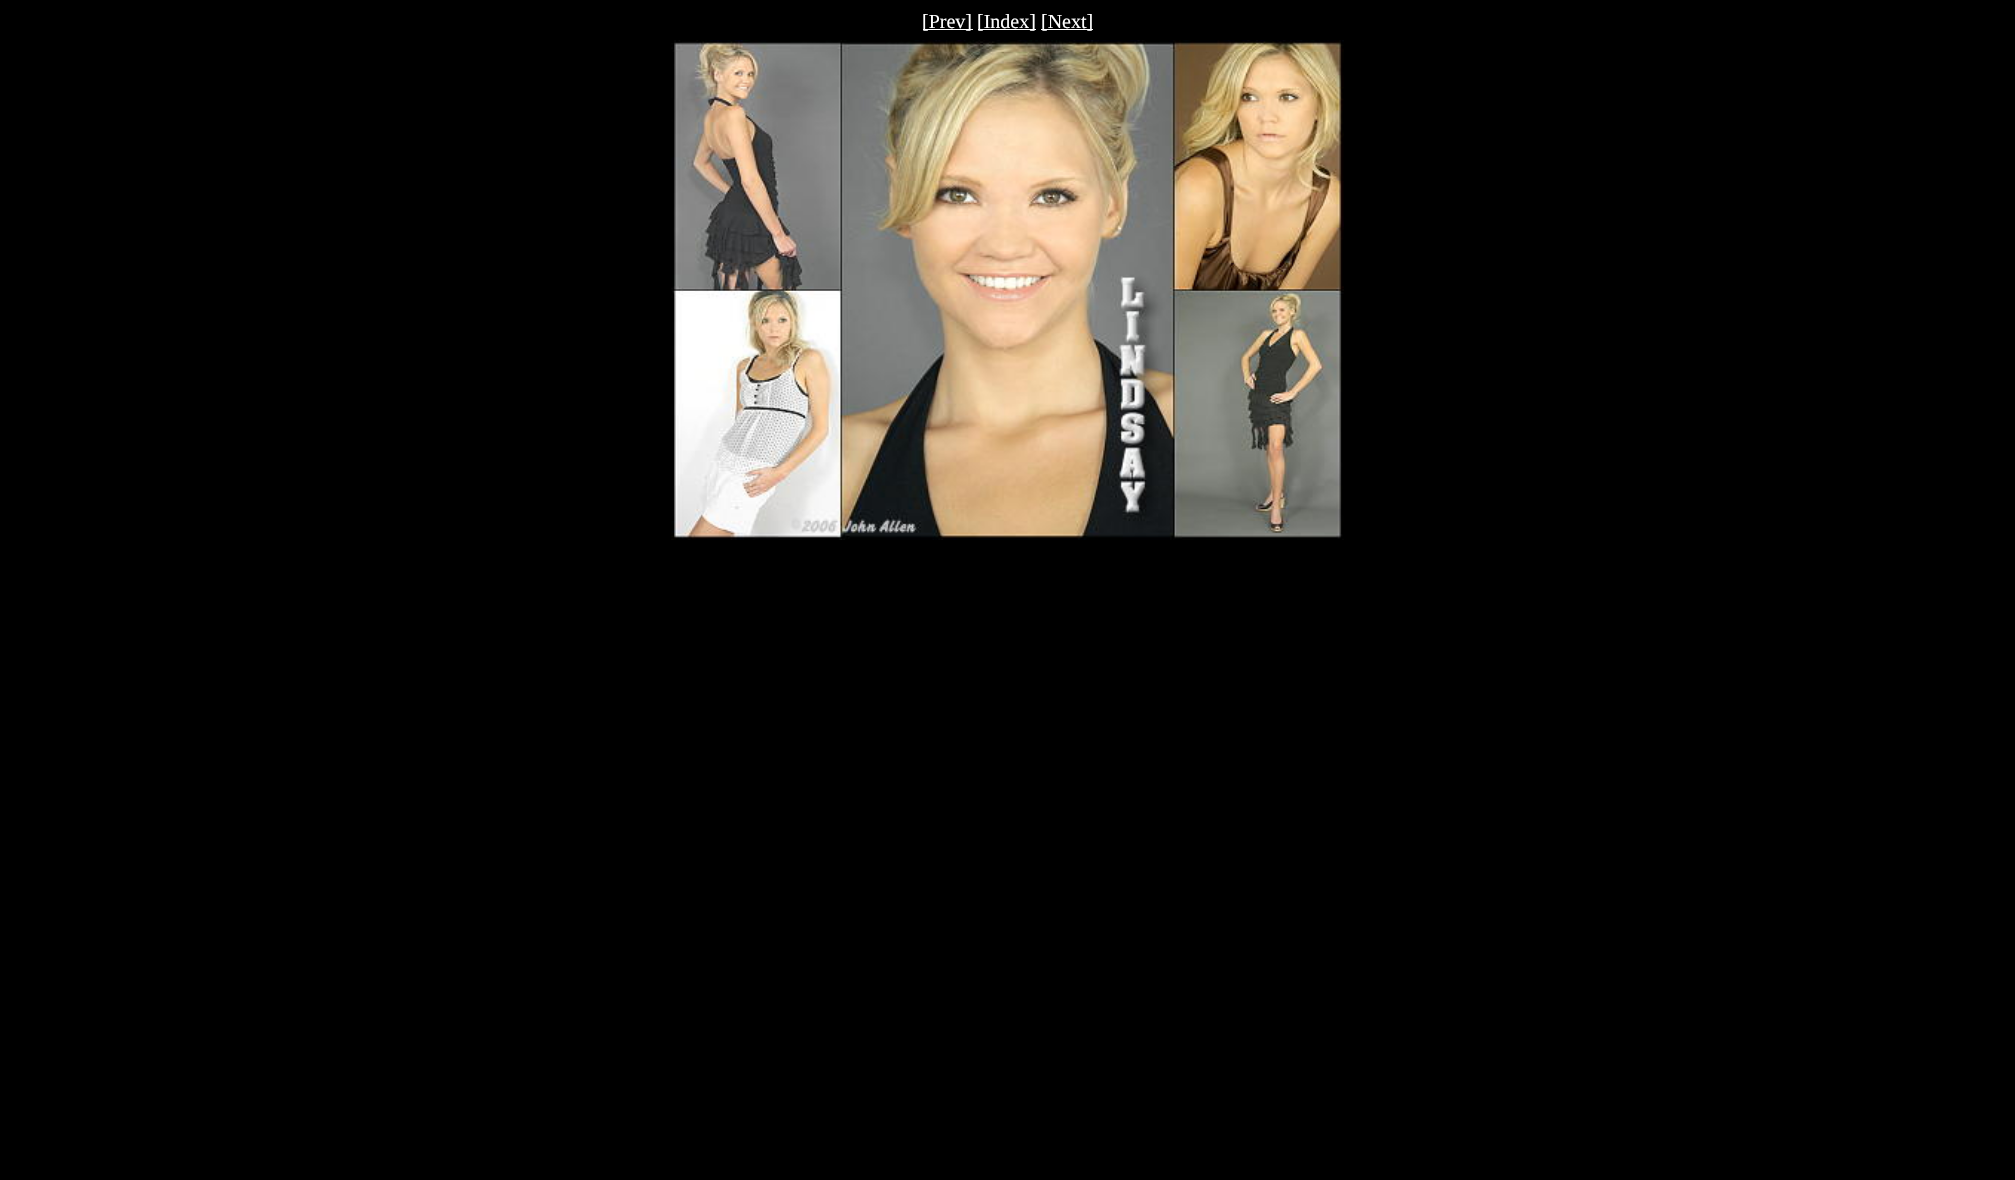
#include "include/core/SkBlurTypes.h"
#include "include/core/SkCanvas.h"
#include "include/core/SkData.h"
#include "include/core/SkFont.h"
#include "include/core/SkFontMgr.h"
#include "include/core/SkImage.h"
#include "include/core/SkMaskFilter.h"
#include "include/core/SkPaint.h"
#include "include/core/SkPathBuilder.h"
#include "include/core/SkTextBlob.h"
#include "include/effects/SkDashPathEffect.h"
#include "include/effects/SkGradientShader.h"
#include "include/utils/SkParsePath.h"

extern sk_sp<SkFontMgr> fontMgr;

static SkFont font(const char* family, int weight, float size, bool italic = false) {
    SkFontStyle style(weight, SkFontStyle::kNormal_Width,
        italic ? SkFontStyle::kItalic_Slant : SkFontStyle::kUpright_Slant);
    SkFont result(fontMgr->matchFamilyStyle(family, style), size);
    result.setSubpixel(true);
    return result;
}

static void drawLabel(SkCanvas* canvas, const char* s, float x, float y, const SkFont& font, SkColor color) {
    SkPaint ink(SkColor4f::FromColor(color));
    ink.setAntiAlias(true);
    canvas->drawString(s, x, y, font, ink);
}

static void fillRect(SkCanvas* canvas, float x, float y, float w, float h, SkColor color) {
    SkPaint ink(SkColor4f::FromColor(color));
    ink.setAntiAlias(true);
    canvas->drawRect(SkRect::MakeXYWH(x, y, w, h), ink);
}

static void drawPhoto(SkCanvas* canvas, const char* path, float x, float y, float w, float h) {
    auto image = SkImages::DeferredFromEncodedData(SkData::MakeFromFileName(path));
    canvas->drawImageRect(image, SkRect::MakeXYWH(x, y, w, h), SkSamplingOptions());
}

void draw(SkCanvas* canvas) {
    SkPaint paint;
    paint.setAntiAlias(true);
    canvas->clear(0xFF000000);
    fillRect(canvas, 923, 29, 50, 1, 0xFFFFFFFF);
    SkFont font1 = font("Liberation Serif", 400, 20);
    drawLabel(canvas, "[Prev]", 922, 28, font1, 0xFFFFFFFF);
    fillRect(canvas, 978, 29, 58, 1, 0xFFFFFFFF);
    drawLabel(canvas, "[Index]", 977, 28, font1, 0xFFFFFFFF);
    fillRect(canvas, 1041, 29, 52, 1, 0xFFFFFFFF);
    drawLabel(canvas, "[Next]", 1041, 28, font1, 0xFFFFFFFF);
    drawPhoto(canvas, "assets/img1.png", 671, 40, 673, 500);
}
